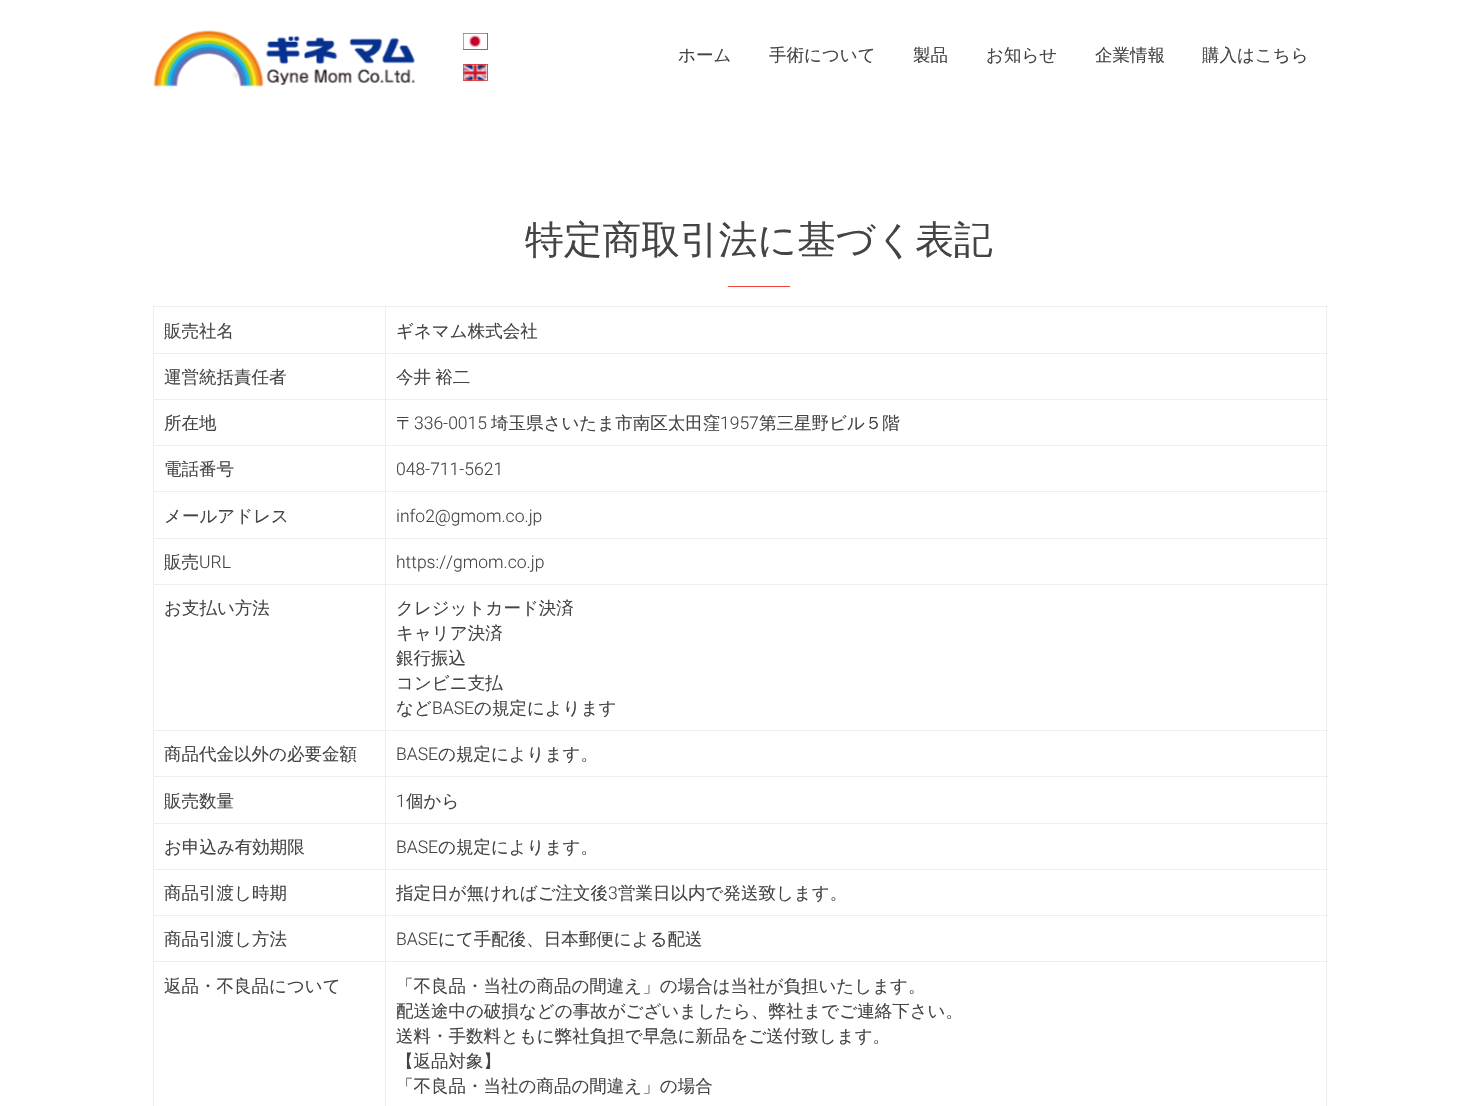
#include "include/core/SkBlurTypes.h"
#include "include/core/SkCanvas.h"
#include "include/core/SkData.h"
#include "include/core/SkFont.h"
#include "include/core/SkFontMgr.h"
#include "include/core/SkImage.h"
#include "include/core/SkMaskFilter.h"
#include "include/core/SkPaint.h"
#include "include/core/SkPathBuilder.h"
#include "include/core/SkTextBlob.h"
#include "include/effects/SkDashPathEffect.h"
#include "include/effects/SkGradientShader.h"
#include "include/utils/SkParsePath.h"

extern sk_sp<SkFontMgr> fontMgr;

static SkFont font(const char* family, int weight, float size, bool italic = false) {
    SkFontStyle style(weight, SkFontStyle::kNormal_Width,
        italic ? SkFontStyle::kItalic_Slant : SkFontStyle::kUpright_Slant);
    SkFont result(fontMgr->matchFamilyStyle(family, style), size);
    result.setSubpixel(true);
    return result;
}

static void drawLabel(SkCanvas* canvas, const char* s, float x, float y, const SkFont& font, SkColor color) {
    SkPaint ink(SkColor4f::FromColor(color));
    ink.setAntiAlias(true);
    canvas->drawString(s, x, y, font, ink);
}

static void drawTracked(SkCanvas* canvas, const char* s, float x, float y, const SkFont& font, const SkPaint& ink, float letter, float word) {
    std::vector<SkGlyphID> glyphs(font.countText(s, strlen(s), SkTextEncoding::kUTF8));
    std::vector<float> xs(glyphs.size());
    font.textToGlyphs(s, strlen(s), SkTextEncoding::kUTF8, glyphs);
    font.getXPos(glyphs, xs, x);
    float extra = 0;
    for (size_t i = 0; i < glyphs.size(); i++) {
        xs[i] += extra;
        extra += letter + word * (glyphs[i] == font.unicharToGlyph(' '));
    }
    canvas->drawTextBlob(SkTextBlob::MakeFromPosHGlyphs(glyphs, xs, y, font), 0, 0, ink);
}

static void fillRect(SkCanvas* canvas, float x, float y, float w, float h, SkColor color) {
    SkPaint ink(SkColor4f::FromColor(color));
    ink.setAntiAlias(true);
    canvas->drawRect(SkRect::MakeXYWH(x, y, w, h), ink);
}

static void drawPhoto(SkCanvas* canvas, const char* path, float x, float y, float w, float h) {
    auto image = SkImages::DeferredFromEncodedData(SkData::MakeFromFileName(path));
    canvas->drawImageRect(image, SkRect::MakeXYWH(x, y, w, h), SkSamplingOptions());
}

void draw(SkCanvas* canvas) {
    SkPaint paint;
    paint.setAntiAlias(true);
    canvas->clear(0xFFFFFFFF);
    drawPhoto(canvas, "assets/img1.png", 153, 30, 263, 57);
    paint.setStroke(true);
    paint.setStrokeWidth(1);
    paint.setColor(0xFFF44336);
    canvas->drawRect(SkRect::MakeXYWH(463.5f, 33.5f, 24, 16), paint);
    drawPhoto(canvas, "assets/img2.png", 463, 33, 24, 16);
    canvas->drawRect(SkRect::MakeXYWH(463.5f, 64.5f, 24, 16), paint);
    drawPhoto(canvas, "assets/img3.png", 463, 64, 24, 17);
    SkFont font1 = font("WenQuanYi Zen Hei", 500, 17.5f);
    drawLabel(canvas, "ホーム", 678, 61, font1, 0xFF444444);
    drawLabel(canvas, "手術について", 769, 61, font1, 0xFF444444);
    drawLabel(canvas, "製品", 913, 61, font1, 0xFF444444);
    drawLabel(canvas, "お知らせ", 986, 61, font1, 0xFF444444);
    drawLabel(canvas, "企業情報", 1095, 61, font1, 0xFF444444);
    drawLabel(canvas, "購入はこちら", 1202, 61, font1, 0xFF444444);
    SkFont font2 = font("WenQuanYi Zen Hei", 500, 38.75f);
    drawLabel(canvas, "特定商取引法に基づく表記", 525, 253, font2, 0xFF444444);
    fillRect(canvas, 728, 286, 62, 1, 0xFFF44336);
    fillRect(canvas, 153, 306, 1175, 1, 0xFFEEEEEE);
    fillRect(canvas, 1326, 306, 1, 800, 0xFFEEEEEE);
    fillRect(canvas, 153, 306, 1, 800, 0xFFEEEEEE);
    drawLabel(canvas, "販売社名", 164, 337, font1, 0xFF444444);
    fillRect(canvas, 385, 353, 943, 1, 0xFFEEEEEE);
    fillRect(canvas, 385, 399, 943, 1, 0xFFEEEEEE);
    fillRect(canvas, 385, 445, 943, 1, 0xFFEEEEEE);
    fillRect(canvas, 385, 491, 943, 1, 0xFFEEEEEE);
    fillRect(canvas, 385, 538, 943, 1, 0xFFEEEEEE);
    fillRect(canvas, 385, 584, 943, 1, 0xFFEEEEEE);
    fillRect(canvas, 385, 730, 943, 1, 0xFFEEEEEE);
    fillRect(canvas, 385, 776, 943, 1, 0xFFEEEEEE);
    fillRect(canvas, 385, 823, 943, 1, 0xFFEEEEEE);
    fillRect(canvas, 385, 869, 943, 1, 0xFFEEEEEE);
    fillRect(canvas, 385, 915, 943, 1, 0xFFEEEEEE);
    fillRect(canvas, 385, 961, 943, 1, 0xFFEEEEEE);
    fillRect(canvas, 385, 961, 1, 145, 0xFFEEEEEE);
    fillRect(canvas, 153, 961, 233, 1, 0xFFEEEEEE);
    fillRect(canvas, 385, 915, 1, 48, 0xFFEEEEEE);
    fillRect(canvas, 153, 915, 233, 1, 0xFFEEEEEE);
    fillRect(canvas, 385, 869, 1, 47, 0xFFEEEEEE);
    fillRect(canvas, 153, 869, 233, 1, 0xFFEEEEEE);
    fillRect(canvas, 385, 823, 1, 47, 0xFFEEEEEE);
    fillRect(canvas, 153, 823, 233, 1, 0xFFEEEEEE);
    fillRect(canvas, 385, 776, 1, 48, 0xFFEEEEEE);
    fillRect(canvas, 153, 776, 233, 1, 0xFFEEEEEE);
    fillRect(canvas, 385, 730, 1, 48, 0xFFEEEEEE);
    fillRect(canvas, 153, 730, 233, 1, 0xFFEEEEEE);
    fillRect(canvas, 385, 584, 1, 147, 0xFFEEEEEE);
    fillRect(canvas, 153, 584, 233, 1, 0xFFEEEEEE);
    fillRect(canvas, 385, 538, 1, 47, 0xFFEEEEEE);
    fillRect(canvas, 153, 538, 233, 1, 0xFFEEEEEE);
    fillRect(canvas, 385, 491, 1, 48, 0xFFEEEEEE);
    fillRect(canvas, 153, 491, 233, 1, 0xFFEEEEEE);
    fillRect(canvas, 385, 445, 1, 48, 0xFFEEEEEE);
    fillRect(canvas, 153, 445, 233, 1, 0xFFEEEEEE);
    fillRect(canvas, 385, 399, 1, 47, 0xFFEEEEEE);
    fillRect(canvas, 153, 399, 233, 1, 0xFFEEEEEE);
    fillRect(canvas, 385, 353, 1, 47, 0xFFEEEEEE);
    fillRect(canvas, 153, 353, 233, 1, 0xFFEEEEEE);
    fillRect(canvas, 385, 306, 1, 48, 0xFFEEEEEE);
    drawLabel(canvas, "ギネマム株式会社", 396, 337, font1, 0xFF444444);
    drawLabel(canvas, "運営統括責任者", 164, 383, font1, 0xFF444444);
    paint.setStroke(false);
    paint.setColor(0xFF444444);
    drawTracked(canvas, "今井 裕二", 396, 383, font1, paint, 0, -1);
    drawLabel(canvas, "所在地", 164, 429, font1, 0xFF444444);
    drawLabel(canvas, "〒", 396, 429, font1, 0xFF444444);
    SkFont font3 = font("Roboto", 300, 17.5f);
    drawLabel(canvas, "336-0015", 414, 429, font3, 0xFF444444);
    drawLabel(canvas, "埼玉県さいたま市南区太田窪", 491, 429, font1, 0xFF444444);
    drawLabel(canvas, "1957", 720, 429, font3, 0xFF444444);
    drawLabel(canvas, "第三星野ビル５階", 759, 429, font1, 0xFF444444);
    drawLabel(canvas, "電話番号", 164, 475, font1, 0xFF444444);
    drawLabel(canvas, "048-711-5621", 396, 475, font3, 0xFF444444);
    drawLabel(canvas, "メールアドレス", 164, 522, font1, 0xFF444444);
    drawLabel(canvas, "info2@gmom.co.jp", 396, 522, font3, 0xFF444444);
    drawLabel(canvas, "販売", 164, 568, font1, 0xFF444444);
    drawLabel(canvas, "URL", 199, 568, font3, 0xFF444444);
    drawLabel(canvas, "https://gmom.co.jp", 396, 568, font3, 0xFF444444);
    drawLabel(canvas, "お支払い方法", 164, 614, font1, 0xFF444444);
    drawLabel(canvas, "クレジットカード決済", 396, 614, font1, 0xFF444444);
    drawLabel(canvas, "キャリア決済", 396, 639, font1, 0xFF444444);
    drawLabel(canvas, "銀行振込", 396, 664, font1, 0xFF444444);
    drawLabel(canvas, "コンビニ支払", 396, 689, font1, 0xFF444444);
    drawLabel(canvas, "など", 396, 714, font1, 0xFF444444);
    drawLabel(canvas, "BASE", 432, 714, font3, 0xFF444444);
    drawLabel(canvas, "の規定によります", 474, 714, font1, 0xFF444444);
    drawLabel(canvas, "商品代金以外の必要金額", 164, 760, font1, 0xFF444444);
    drawLabel(canvas, "BASE", 396, 760, font3, 0xFF444444);
    drawLabel(canvas, "の規定によります。", 438, 760, font1, 0xFF444444);
    drawLabel(canvas, "販売数量", 164, 807, font1, 0xFF444444);
    drawLabel(canvas, "1", 396, 807, font3, 0xFF444444);
    drawLabel(canvas, "個から", 406, 807, font1, 0xFF444444);
    drawLabel(canvas, "お申込み有効期限", 164, 853, font1, 0xFF444444);
    drawLabel(canvas, "BASE", 396, 853, font3, 0xFF444444);
    drawLabel(canvas, "の規定によります。", 438, 853, font1, 0xFF444444);
    drawLabel(canvas, "商品引渡し時期", 164, 899, font1, 0xFF444444);
    drawLabel(canvas, "指定日が無ければご注文後", 396, 899, font1, 0xFF444444);
    drawLabel(canvas, "3", 608, 899, font3, 0xFF444444);
    drawLabel(canvas, "営業日以内で発送致します。", 618, 899, font1, 0xFF444444);
    drawLabel(canvas, "商品引渡し方法", 164, 945, font1, 0xFF444444);
    drawLabel(canvas, "BASE", 396, 945, font3, 0xFF444444);
    drawLabel(canvas, "にて手配後、日本郵便による配送", 438, 945, font1, 0xFF444444);
    drawLabel(canvas, "返品・不良品について", 164, 992, font1, 0xFF444444);
    drawLabel(canvas, "「不良品・当社の商品の間違え」の場合は当社が負担いたします。", 396, 992, font1, 0xFF444444);
    drawLabel(canvas, "配送途中の破損などの事故がございましたら、弊社までご連絡下さい。", 396, 1017, font1, 0xFF444444);
    drawLabel(canvas, "送料・手数料ともに弊社負担で早急に新品をご送付致します。", 396, 1042, font1, 0xFF444444);
    drawLabel(canvas, "【返品対象】", 396, 1067, font1, 0xFF444444);
    drawLabel(canvas, "「不良品・当社の商品の間違え」の場合", 396, 1092, font1, 0xFF444444);
}
